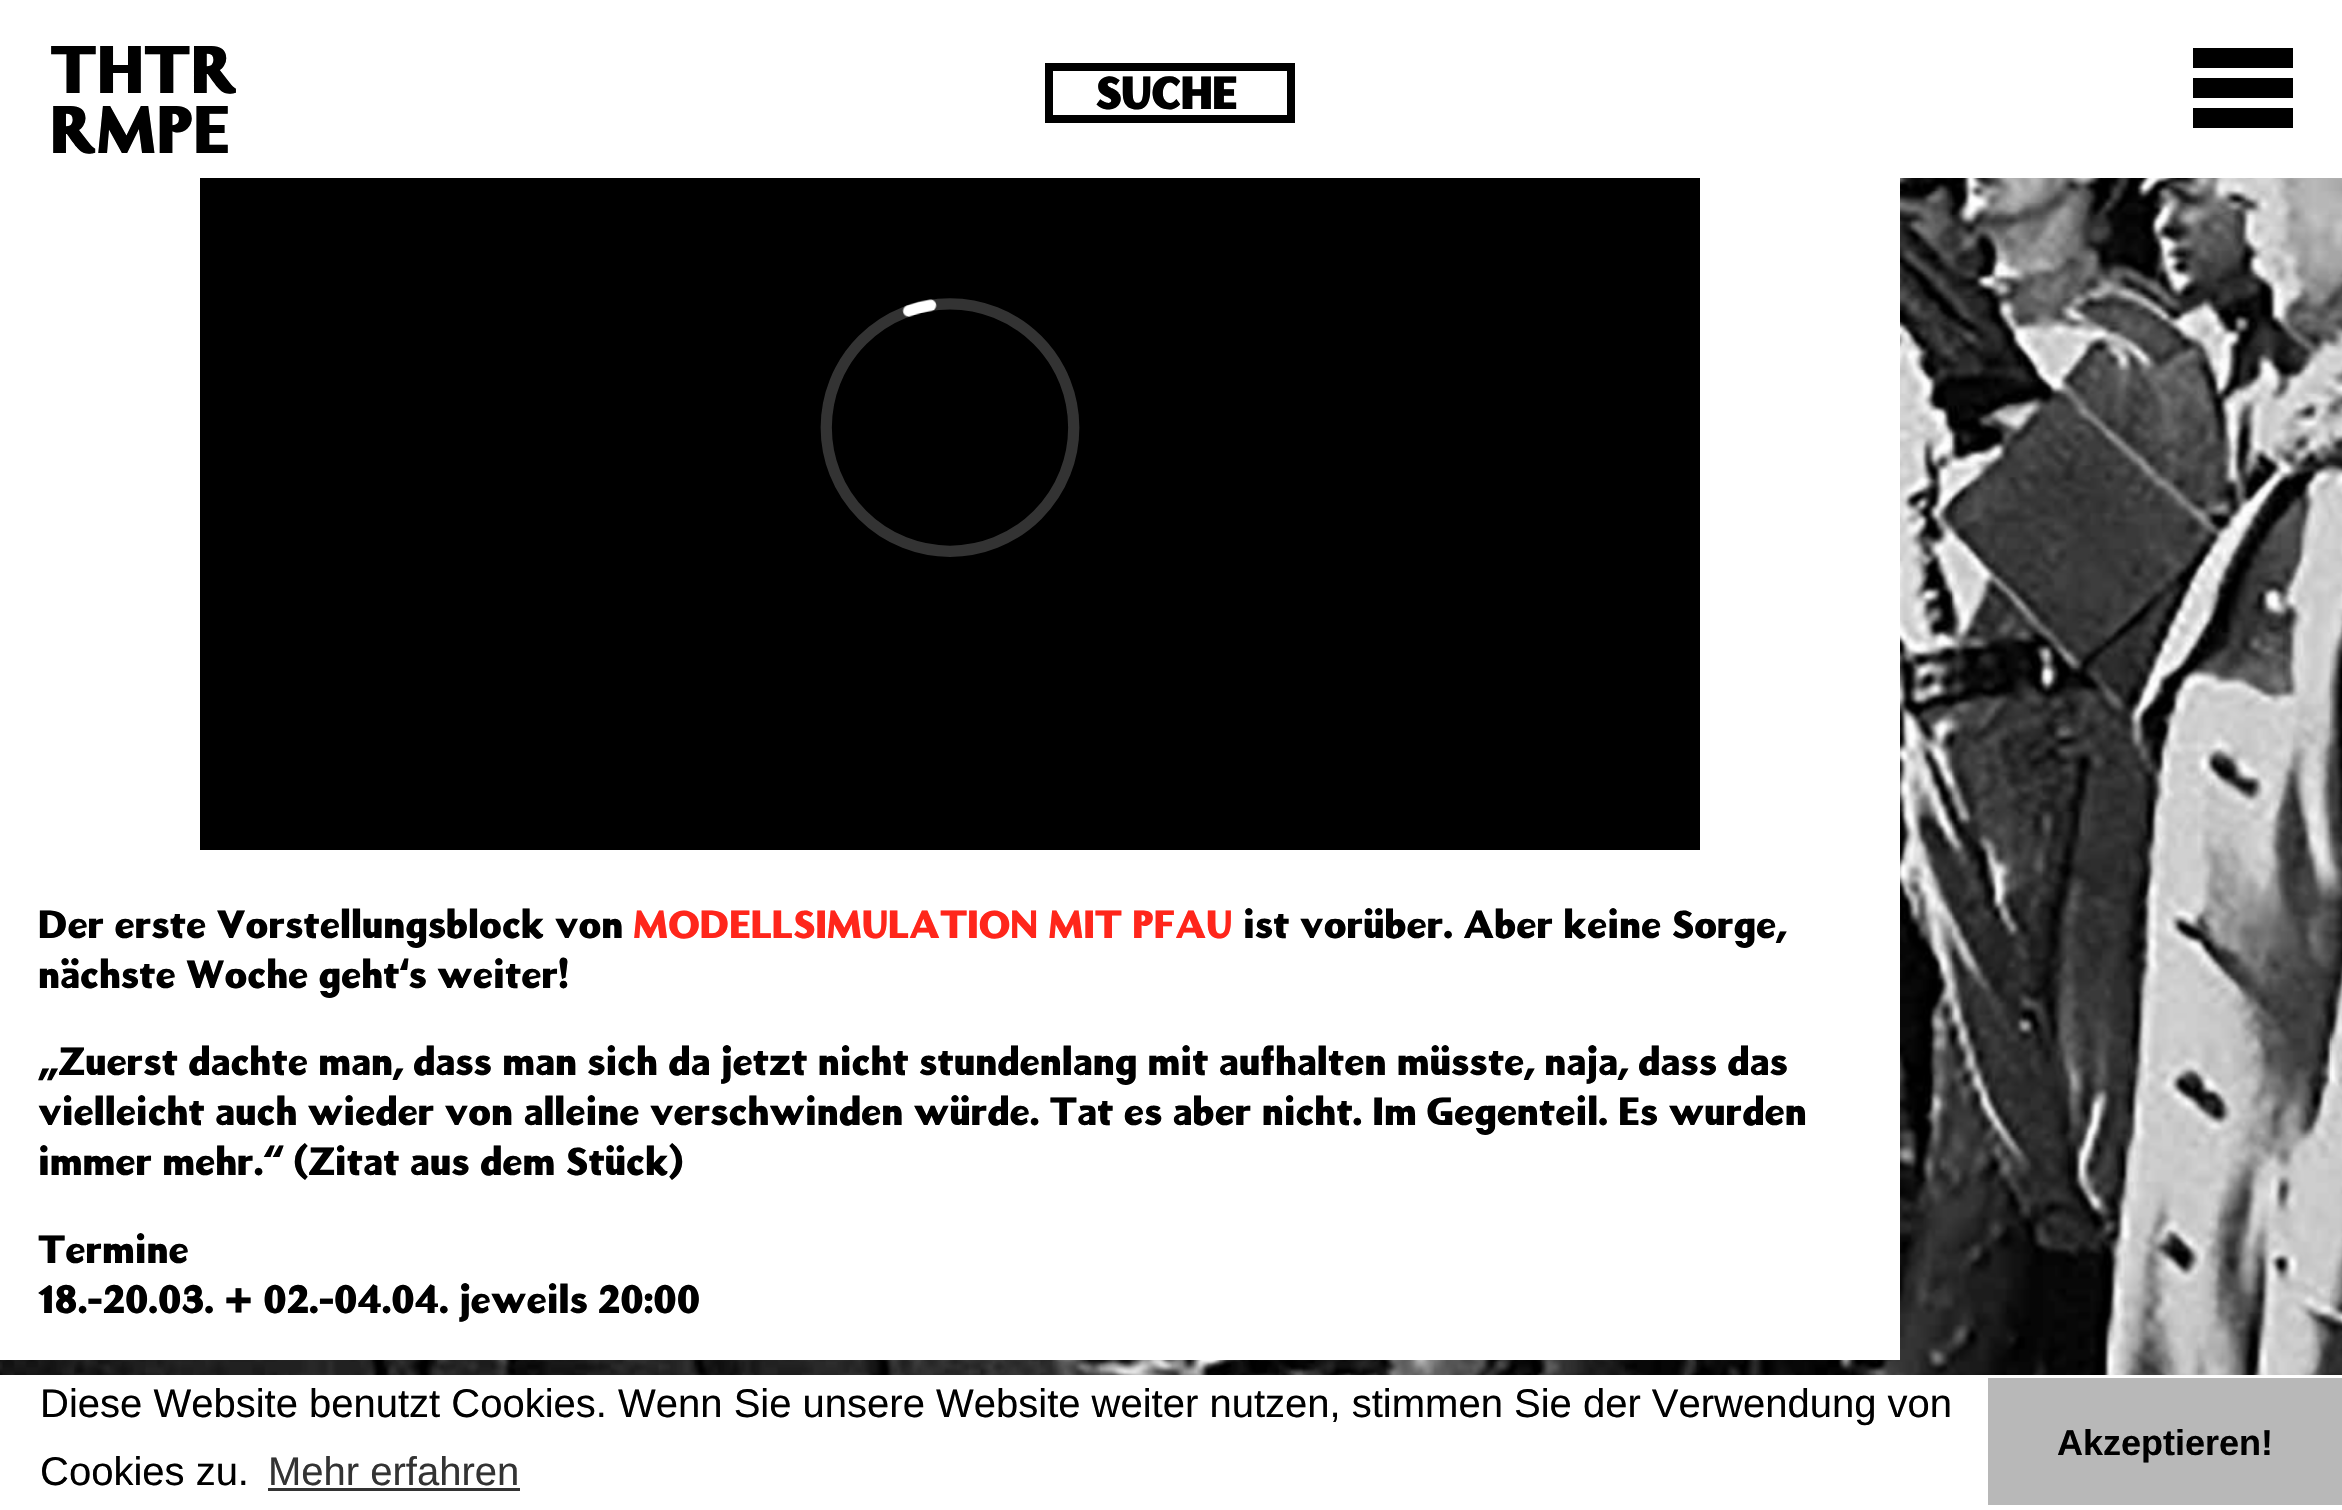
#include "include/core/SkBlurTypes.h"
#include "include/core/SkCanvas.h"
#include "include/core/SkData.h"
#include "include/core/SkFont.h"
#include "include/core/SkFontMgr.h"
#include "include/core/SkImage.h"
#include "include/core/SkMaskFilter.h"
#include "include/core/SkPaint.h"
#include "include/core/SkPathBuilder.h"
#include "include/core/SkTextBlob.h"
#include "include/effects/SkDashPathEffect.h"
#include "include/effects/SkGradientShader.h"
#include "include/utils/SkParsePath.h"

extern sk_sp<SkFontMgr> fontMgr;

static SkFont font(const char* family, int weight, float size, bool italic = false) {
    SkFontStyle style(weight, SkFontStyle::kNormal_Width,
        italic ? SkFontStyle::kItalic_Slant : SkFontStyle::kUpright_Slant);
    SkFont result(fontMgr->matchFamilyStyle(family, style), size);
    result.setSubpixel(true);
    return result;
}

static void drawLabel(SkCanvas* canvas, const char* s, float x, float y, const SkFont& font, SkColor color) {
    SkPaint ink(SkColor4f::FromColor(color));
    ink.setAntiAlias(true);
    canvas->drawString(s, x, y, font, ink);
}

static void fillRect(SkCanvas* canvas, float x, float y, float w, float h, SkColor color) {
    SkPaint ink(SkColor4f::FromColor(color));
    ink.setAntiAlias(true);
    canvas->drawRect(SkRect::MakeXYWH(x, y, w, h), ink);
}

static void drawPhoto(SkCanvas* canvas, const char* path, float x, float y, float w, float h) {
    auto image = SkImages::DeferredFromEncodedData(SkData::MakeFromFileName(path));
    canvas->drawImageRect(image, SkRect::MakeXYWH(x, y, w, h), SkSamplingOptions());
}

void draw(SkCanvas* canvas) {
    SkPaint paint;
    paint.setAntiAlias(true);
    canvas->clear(0xFFFFFFFF);
    SkFont font1 = font("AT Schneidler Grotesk", 400, 60);
    drawLabel(canvas, "THTR", 50, 93, font1, 0xFF000000);
    drawLabel(canvas, "RMPE", 50, 153, font1, 0xFF000000);
    paint.setStroke(true);
    paint.setStrokeWidth(8);
    paint.setColor(0xFF000000);
    canvas->drawRect(SkRect::MakeXYWH(1049, 67, 242, 52), paint);
    SkFont font2 = font("AT Schneidler Grotesk", 700, 40);
    drawLabel(canvas, "SUCHE", 1095, 109, font2, 0xFF000000);
    fillRect(canvas, 2193, 48, 100, 20, 0xFF000000);
    fillRect(canvas, 2193, 78, 100, 20, 0xFF000000);
    fillRect(canvas, 2193, 108, 100, 20, 0xFF000000);
    drawPhoto(canvas, "assets/img1.png", 0, 178, 2342, 1197);
    fillRect(canvas, 0, 178, 1900, 1182, 0xFFFFFFFF);
    drawPhoto(canvas, "assets/img2.png", 200, 178, 1500, 672);
    SkFont font3 = font("AT Schneidler Grotesk", 400, 35);
    drawLabel(canvas, "Der erste Vorstellungsblock von", 38, 938, font3, 0xFF000000);
    drawLabel(canvas, "MODELLSIMULATION MIT PFAU", 633, 938, font3, 0xFFFF261B);
    drawLabel(canvas, "ist vorüber. Aber keine Sorge,", 1243, 938, font3, 0xFF000000);
    drawLabel(canvas, "nächste Woche geht‘s weiter!", 38, 988, font3, 0xFF000000);
    drawLabel(canvas, "„Zuerst dachte man, dass man sich da jetzt nicht stundenlang mit aufhalten müsste, naja, dass das", 38, 1075, font3, 0xFF000000);
    drawLabel(canvas, "vielleicht auch wieder von alleine verschwinden würde. Tat es aber nicht. Im Gegenteil. Es wurden", 38, 1125, font3, 0xFF000000);
    drawLabel(canvas, "immer mehr.“ (Zitat aus dem Stück)", 38, 1175, font3, 0xFF000000);
    drawLabel(canvas, "Termine", 38, 1263, font3, 0xFF000000);
    drawLabel(canvas, "18.-20.03. + 02.-04.04. jeweils 20:00", 38, 1313, font3, 0xFF000000);
    SkFont font4 = font("Liberation Sans", 400, 40);
    drawLabel(canvas, "Diese Website benutzt Cookies. Wenn Sie unsere Website weiter nutzen, stimmen Sie der Verwendung von", 40, 1417, font4, 0xFF000000);
    drawLabel(canvas, "Cookies zu.", 40, 1485, font4, 0xFF000000);
    drawLabel(canvas, "Mehr erfahren", 268, 1485, font4, 0xFF333333);
    fillRect(canvas, 268, 1488, 252, 3, 0xFF333333);
    fillRect(canvas, 1988, 1378, 354, 127, 0xFFB8B8B8);
    SkFont font5 = font("Liberation Sans", 700, 36);
    drawLabel(canvas, "Akzeptieren!", 2057, 1455, font5, 0xFF000000);
}
